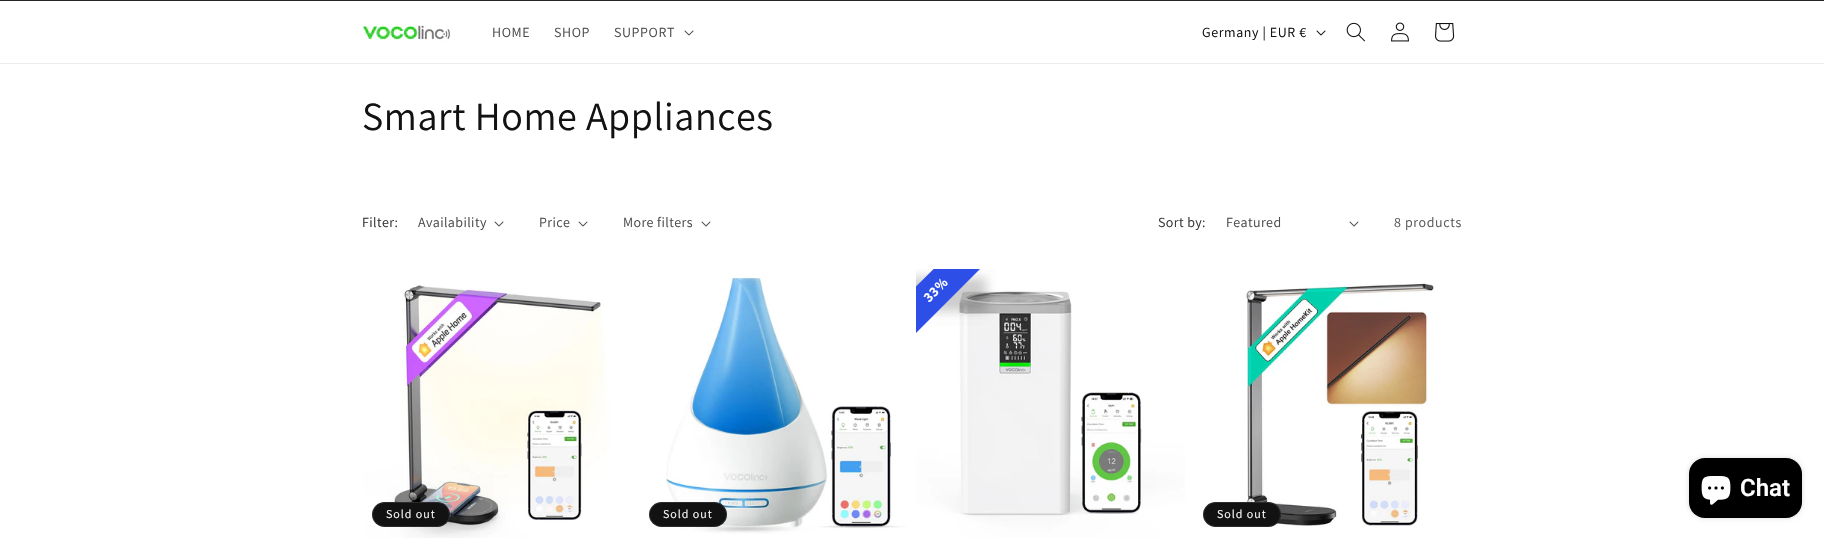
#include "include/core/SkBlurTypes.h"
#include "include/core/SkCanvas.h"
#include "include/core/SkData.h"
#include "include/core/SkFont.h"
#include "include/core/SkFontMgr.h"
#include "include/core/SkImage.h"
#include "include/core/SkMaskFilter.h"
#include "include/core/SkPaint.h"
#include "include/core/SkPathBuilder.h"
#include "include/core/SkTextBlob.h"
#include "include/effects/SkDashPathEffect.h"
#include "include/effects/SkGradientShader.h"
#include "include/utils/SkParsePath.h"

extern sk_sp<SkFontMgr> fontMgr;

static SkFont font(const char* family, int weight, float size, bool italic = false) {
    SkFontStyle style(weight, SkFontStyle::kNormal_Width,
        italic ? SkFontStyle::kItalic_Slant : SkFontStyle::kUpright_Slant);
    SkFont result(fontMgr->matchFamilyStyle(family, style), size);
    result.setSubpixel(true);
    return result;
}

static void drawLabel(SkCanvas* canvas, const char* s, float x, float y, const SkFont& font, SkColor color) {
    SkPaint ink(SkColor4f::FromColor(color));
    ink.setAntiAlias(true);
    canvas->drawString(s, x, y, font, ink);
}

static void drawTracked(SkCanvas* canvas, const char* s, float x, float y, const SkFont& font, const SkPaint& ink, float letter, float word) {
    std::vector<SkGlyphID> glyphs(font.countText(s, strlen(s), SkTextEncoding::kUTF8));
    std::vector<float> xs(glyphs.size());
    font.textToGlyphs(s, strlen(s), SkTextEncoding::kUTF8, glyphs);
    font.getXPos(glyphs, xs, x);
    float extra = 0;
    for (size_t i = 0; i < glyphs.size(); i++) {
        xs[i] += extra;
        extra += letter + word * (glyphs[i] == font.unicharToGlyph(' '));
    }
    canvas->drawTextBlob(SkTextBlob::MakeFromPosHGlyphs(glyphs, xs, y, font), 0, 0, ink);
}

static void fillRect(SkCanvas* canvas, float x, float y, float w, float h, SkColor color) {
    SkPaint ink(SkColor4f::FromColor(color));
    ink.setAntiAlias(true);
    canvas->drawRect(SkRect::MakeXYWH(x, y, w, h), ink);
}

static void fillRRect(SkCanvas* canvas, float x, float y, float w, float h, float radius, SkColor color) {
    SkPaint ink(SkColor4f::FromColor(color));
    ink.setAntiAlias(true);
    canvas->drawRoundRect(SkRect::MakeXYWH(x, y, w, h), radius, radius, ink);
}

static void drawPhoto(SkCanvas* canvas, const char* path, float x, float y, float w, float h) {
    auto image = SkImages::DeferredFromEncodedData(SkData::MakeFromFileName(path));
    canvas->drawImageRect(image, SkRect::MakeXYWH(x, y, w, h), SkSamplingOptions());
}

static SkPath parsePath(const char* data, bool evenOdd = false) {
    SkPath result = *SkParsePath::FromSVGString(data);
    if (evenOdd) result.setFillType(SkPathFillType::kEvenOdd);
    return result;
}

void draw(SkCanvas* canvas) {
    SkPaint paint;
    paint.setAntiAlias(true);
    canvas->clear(0xFFFFFFFF);
    fillRect(canvas, 0, 0, 1824, 1, 0xFF252525);
    fillRect(canvas, 0, 63, 1824, 1, 0xFFECECEC);
    drawPhoto(canvas, "assets/img1.png", 362, 24, 88, 17);
    SkFont font1 = font("Assistant", 400, 14);
    paint.setColor(0xFF4D4D4D);
    drawTracked(canvas, "HOME", 492, 37, font1, paint, 0.6f, 0);
    drawTracked(canvas, "SHOP", 554, 37, font1, paint, 0.6f, 0);
    drawTracked(canvas, "SUPPORT", 614, 37, font1, paint, 0.6f, 0);
    drawPhoto(canvas, "assets/img2.png", 684, 30, 10, 6);
    paint.setColor(0xFF121212);
    drawTracked(canvas, "Germany | EUR €", 1202, 37, font1, paint, 0.6f, 0);
    drawPhoto(canvas, "assets/img3.png", 1316, 30, 10, 6);
    drawPhoto(canvas, "assets/img4.png", 1346, 22, 19, 20);
    drawPhoto(canvas, "assets/img5.png", 1391, 22, 18, 20);
    drawPhoto(canvas, "assets/img6.png", 1435, 23, 20, 19);
    SkFont font2 = font("Assistant", 400, 40);
    drawTracked(canvas, "Smart Home Appliances", 362, 130, font2, paint, 0.6f, 0);
    paint.setColor(0xFF363636);
    drawTracked(canvas, "Filter:", 362, 227, font1, paint, 0.4f, 0);
    paint.setColor(0xFF4D4D4D);
    drawTracked(canvas, "Availability", 418, 227, font1, paint, 0.4f, 0);
    drawPhoto(canvas, "assets/img2.png", 494, 221, 10, 6);
    drawTracked(canvas, "Price", 539, 227, font1, paint, 0.4f, 0);
    drawPhoto(canvas, "assets/img2.png", 578, 221, 10, 6);
    drawTracked(canvas, "More filters", 623, 227, font1, paint, 0.4f, 0);
    drawPhoto(canvas, "assets/img2.png", 701, 221, 10, 6);
    paint.setColor(0xFF363636);
    drawTracked(canvas, "Sort by:", 1158, 227, font1, paint, 0.4f, 0);
    paint.setColor(0xFF4D4D4D);
    drawTracked(canvas, "Featured", 1226, 227, font1, paint, 0.4f, 0);
    drawPhoto(canvas, "assets/img2.png", 1349, 221, 10, 6);
    paint.setColor(0xFF595959);
    drawTracked(canvas, "8 products", 1394, 227, font1, paint, 0.6f, 0);
    drawPhoto(canvas, "assets/img7.png", 916, 269, 269, 269);
    drawPhoto(canvas, "assets/img9.png", 639, 269, 269, 269);
    canvas->save();
    canvas->clipRect(SkRect::MakeXYWH(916, 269, 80, 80));
    paint.setColor(0x1A000000);
    paint.setMaskFilter(SkMaskFilter::MakeBlur(kNormal_SkBlurStyle, 5));
    canvas->drawRect(SkRect::MakeXYWH(886, 278, 100, 33), paint);
    paint.setMaskFilter(nullptr);
    paint.setMaskFilter(SkMaskFilter::MakeBlur(kNormal_SkBlurStyle, 5));
    canvas->drawRect(SkRect::MakeXYWH(886, 278, 100, 33), paint);
    paint.setMaskFilter(nullptr);
    canvas->restore();
    canvas->save();
    canvas->clipRect(SkRect::MakeXYWH(916, 269, 80, 80));
    paint.setColor(0xFF2D4FE8);
    canvas->drawPath(parsePath("M889 313L960 243L983 266L912 337Z"), paint);
    canvas->restore();
    SkFont font3 = font("Assistant", 700, 14);
    paint.setColor(0xFFFFFFFF);
    canvas->save();
    canvas->rotate(-45, 929, 303);
    drawTracked(canvas, "33%", 929, 303, font3, paint, 0.6f, 0);
    canvas->restore();
    drawPhoto(canvas, "assets/img8.png", 362, 269, 269, 269);
    fillRRect(canvas, 372, 502, 78, 25, 12.5f, 0xFF121212);
    paint.setStroke(true);
    paint.setStrokeWidth(1);
    paint.setColor(0x1AFFFFFF);
    canvas->drawRoundRect(SkRect::MakeXYWH(372.5f, 502.5f, 77, 24), 12, 12, paint);
    SkFont font4 = font("Assistant", 400, 12);
    paint.setStroke(false);
    paint.setColor(0xFFFFFFFF);
    drawTracked(canvas, "Sold out", 386, 518, font4, paint, 1, 0);
    fillRRect(canvas, 649, 502, 78, 25, 12.5f, 0xFF121212);
    paint.setStroke(true);
    paint.setColor(0x1AFFFFFF);
    canvas->drawRoundRect(SkRect::MakeXYWH(649.5f, 502.5f, 77, 24), 12, 12, paint);
    paint.setStroke(false);
    paint.setColor(0xFFFFFFFF);
    drawTracked(canvas, "Sold out", 663, 518, font4, paint, 1, 0);
    drawPhoto(canvas, "assets/img10.png", 1193, 269, 269, 269);
    fillRRect(canvas, 1203, 502, 78, 25, 12.5f, 0xFF121212);
    paint.setStroke(true);
    paint.setColor(0x1AFFFFFF);
    canvas->drawRoundRect(SkRect::MakeXYWH(1203.5f, 502.5f, 77, 24), 12, 12, paint);
    paint.setStroke(false);
    paint.setColor(0xFFFFFFFF);
    drawTracked(canvas, "Sold out", 1217, 518, font4, paint, 1, 0);
    paint.setColor(0x26000000);
    paint.setMaskFilter(SkMaskFilter::MakeBlur(kNormal_SkBlurStyle, 2.5f));
    canvas->drawRoundRect(SkRect::MakeXYWH(1689, 458, 113, 60), 16, 16, paint);
    paint.setMaskFilter(nullptr);
    fillRRect(canvas, 1689, 458, 113, 60, 16, 0xFF000000);
    drawPhoto(canvas, "assets/img11.png", 1701, 476, 30, 29);
    SkFont font5 = font("Roboto", 600, 24);
    drawLabel(canvas, "Chat", 1740, 496, font5, 0xFFFFFFFF);
}
